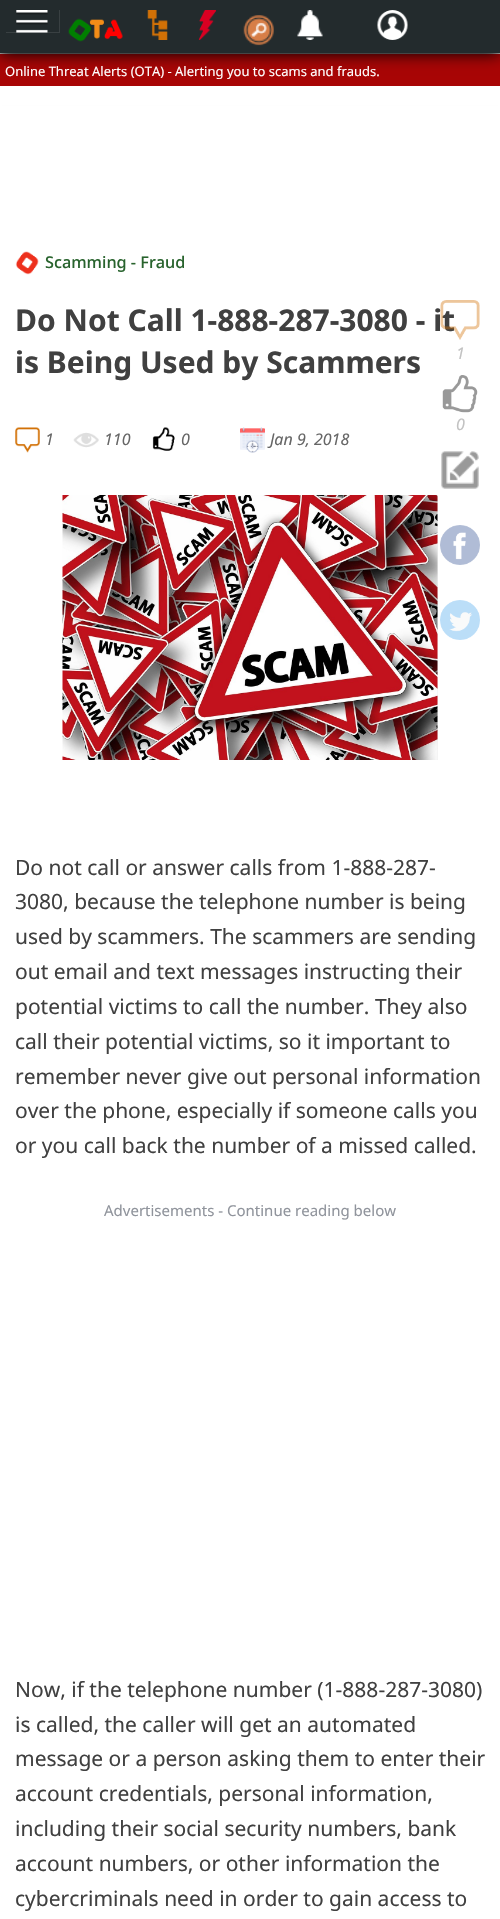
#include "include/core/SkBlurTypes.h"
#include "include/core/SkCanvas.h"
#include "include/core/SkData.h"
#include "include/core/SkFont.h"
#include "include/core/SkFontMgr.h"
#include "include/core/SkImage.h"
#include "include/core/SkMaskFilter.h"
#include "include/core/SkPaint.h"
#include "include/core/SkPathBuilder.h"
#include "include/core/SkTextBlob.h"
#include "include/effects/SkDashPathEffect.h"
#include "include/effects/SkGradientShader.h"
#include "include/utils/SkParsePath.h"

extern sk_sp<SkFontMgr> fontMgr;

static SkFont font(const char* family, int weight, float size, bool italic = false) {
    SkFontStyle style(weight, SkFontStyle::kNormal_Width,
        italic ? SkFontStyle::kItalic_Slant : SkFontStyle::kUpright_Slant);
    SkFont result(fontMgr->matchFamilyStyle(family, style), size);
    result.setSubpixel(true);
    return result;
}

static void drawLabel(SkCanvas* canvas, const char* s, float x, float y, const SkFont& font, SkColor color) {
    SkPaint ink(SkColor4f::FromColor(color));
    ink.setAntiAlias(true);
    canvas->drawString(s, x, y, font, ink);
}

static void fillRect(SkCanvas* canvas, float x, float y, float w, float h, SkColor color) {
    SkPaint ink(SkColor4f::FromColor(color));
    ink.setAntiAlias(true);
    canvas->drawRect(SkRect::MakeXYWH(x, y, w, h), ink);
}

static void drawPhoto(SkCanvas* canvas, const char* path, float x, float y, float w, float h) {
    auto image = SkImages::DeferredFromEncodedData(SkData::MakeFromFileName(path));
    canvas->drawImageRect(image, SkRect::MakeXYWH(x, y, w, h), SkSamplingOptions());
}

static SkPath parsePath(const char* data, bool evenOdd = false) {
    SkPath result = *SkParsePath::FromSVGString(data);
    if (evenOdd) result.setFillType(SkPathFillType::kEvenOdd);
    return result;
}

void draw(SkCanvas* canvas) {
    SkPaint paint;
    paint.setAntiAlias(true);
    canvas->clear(0xFFFFFFFF);
    paint.setColor(0xFF000000);
    paint.setMaskFilter(SkMaskFilter::MakeBlur(kNormal_SkBlurStyle, 7.5f));
    canvas->drawRect(SkRect::MakeXYWH(0, 55, 500, 33), paint);
    paint.setMaskFilter(nullptr);
    fillRect(canvas, 0, 54, 500, 32, 0xFFA80505);
    paint.setMaskFilter(SkMaskFilter::MakeBlur(kNormal_SkBlurStyle, 7.5f));
    canvas->drawRect(SkRect::MakeXYWH(0, 1, 500, 53), paint);
    paint.setMaskFilter(nullptr);
    fillRect(canvas, 0, 0, 500, 53, 0xFF232B2D);
    paint.setColor(0xFF394042);
    canvas->drawPath(parsePath("M6 32V33H60V10H59V32Z"), paint);
    drawPhoto(canvas, "assets/img1.png", 16, 10, 32, 23);
    drawPhoto(canvas, "assets/img2.png", 68, 18, 55, 24);
    drawPhoto(canvas, "assets/img3.png", 147, 10, 21, 30);
    drawPhoto(canvas, "assets/img4.png", 198, 10, 19, 30);
    drawPhoto(canvas, "assets/img5.png", 243, 15, 31, 31);
    drawPhoto(canvas, "assets/img6.png", 297, 10, 26, 30);
    drawPhoto(canvas, "assets/img7.png", 377, 10, 31, 30);
    SkFont font1 = font("Noto Sans", 400, 13);
    drawLabel(canvas, "Online Threat Alerts (OTA) - Alerting you to scams and frauds.", 5, 76, font1, 0xFFFFFFFF);
    fillRect(canvas, 0, 86, 500, 19, 0xFFFFFFFF);
    drawPhoto(canvas, "assets/img8.png", 15, 251, 24, 24);
    SkFont font2 = font("Noto Sans", 500, 16.25f);
    drawLabel(canvas, "Scamming - Fraud", 45, 268, font2, 0xFF28632D);
    SkFont font3 = font("Noto Sans", 700, 30);
    drawLabel(canvas, "Do Not Call 1-888-287-3080 - it", 15, 331, font3, 0xFF404040);
    drawLabel(canvas, "is Being Used by Scammers", 15, 373, font3, 0xFF404040);
    drawPhoto(canvas, "assets/img9.png", 15, 427, 25, 26);
    SkFont font4 = font("Noto Sans", 400, 16, true);
    drawLabel(canvas, "1", 45, 445, font4, 0xFF666666);
    drawPhoto(canvas, "assets/img10.png", 73, 432, 26, 16);
    drawLabel(canvas, "110", 104, 445, font4, 0xFF666666);
    drawPhoto(canvas, "assets/img11.png", 152, 427, 23, 24);
    drawLabel(canvas, "0", 181, 445, font4, 0xFF666666);
    drawPhoto(canvas, "assets/img12.png", 240, 427, 25, 26);
    drawLabel(canvas, "Jan 9, 2018", 270, 445, font4, 0xFF666666);
    fillRect(canvas, 437, 495, 1, 265, 0xFFEEEEEE);
    drawPhoto(canvas, "assets/img13.png", 62, 495, 376, 265);
    SkFont font5 = font("Noto Sans", 400, 21);
    drawLabel(canvas, "Do not call or answer calls from 1-888-287-", 15, 875, font5, 0xFF404040);
    drawLabel(canvas, "3080, because the telephone number is being", 15, 909, font5, 0xFF404040);
    drawLabel(canvas, "used by scammers. The scammers are sending", 15, 944, font5, 0xFF404040);
    drawLabel(canvas, "out email and text messages instructing their", 15, 979, font5, 0xFF404040);
    drawLabel(canvas, "potential victims to call the number. They also", 15, 1014, font5, 0xFF404040);
    drawLabel(canvas, "call their potential victims, so it important to", 15, 1049, font5, 0xFF404040);
    drawLabel(canvas, "remember never give out personal information", 15, 1084, font5, 0xFF404040);
    drawLabel(canvas, "over the phone, especially if someone calls you", 15, 1118, font5, 0xFF404040);
    drawLabel(canvas, "or you call back the number of a missed called.", 15, 1153, font5, 0xFF404040);
    SkFont font6 = font("Noto Sans", 400, 15);
    drawLabel(canvas, "Advertisements - Continue reading below", 104, 1216, font6, 0xFF90949C);
    drawLabel(canvas, "Now, if the telephone number (1-888-287-3080)", 15, 1697, font5, 0xFF404040);
    drawLabel(canvas, "is called, the caller will get an automated", 15, 1732, font5, 0xFF404040);
    drawLabel(canvas, "message or a person asking them to enter their", 15, 1766, font5, 0xFF404040);
    drawLabel(canvas, "account credentials, personal information,", 15, 1801, font5, 0xFF404040);
    drawLabel(canvas, "including their social security numbers, bank", 15, 1836, font5, 0xFF404040);
    drawLabel(canvas, "account numbers, or other information the", 15, 1871, font5, 0xFF404040);
    drawLabel(canvas, "cybercriminals need in order to gain access to", 15, 1906, font5, 0xFF404040);
    drawPhoto(canvas, "assets/img14.png", 440, 300, 40, 40);
    drawLabel(canvas, "1", 456, 359, font4, 0xFFC2C2C2);
    drawPhoto(canvas, "assets/img15.png", 442, 375, 36, 38);
    drawLabel(canvas, "0", 456, 430, font4, 0xFFC2C2C2);
    drawPhoto(canvas, "assets/img16.png", 441, 451, 38, 38);
    drawPhoto(canvas, "assets/img17.png", 440, 525, 40, 40);
    drawPhoto(canvas, "assets/img18.png", 440, 600, 40, 40);
}
